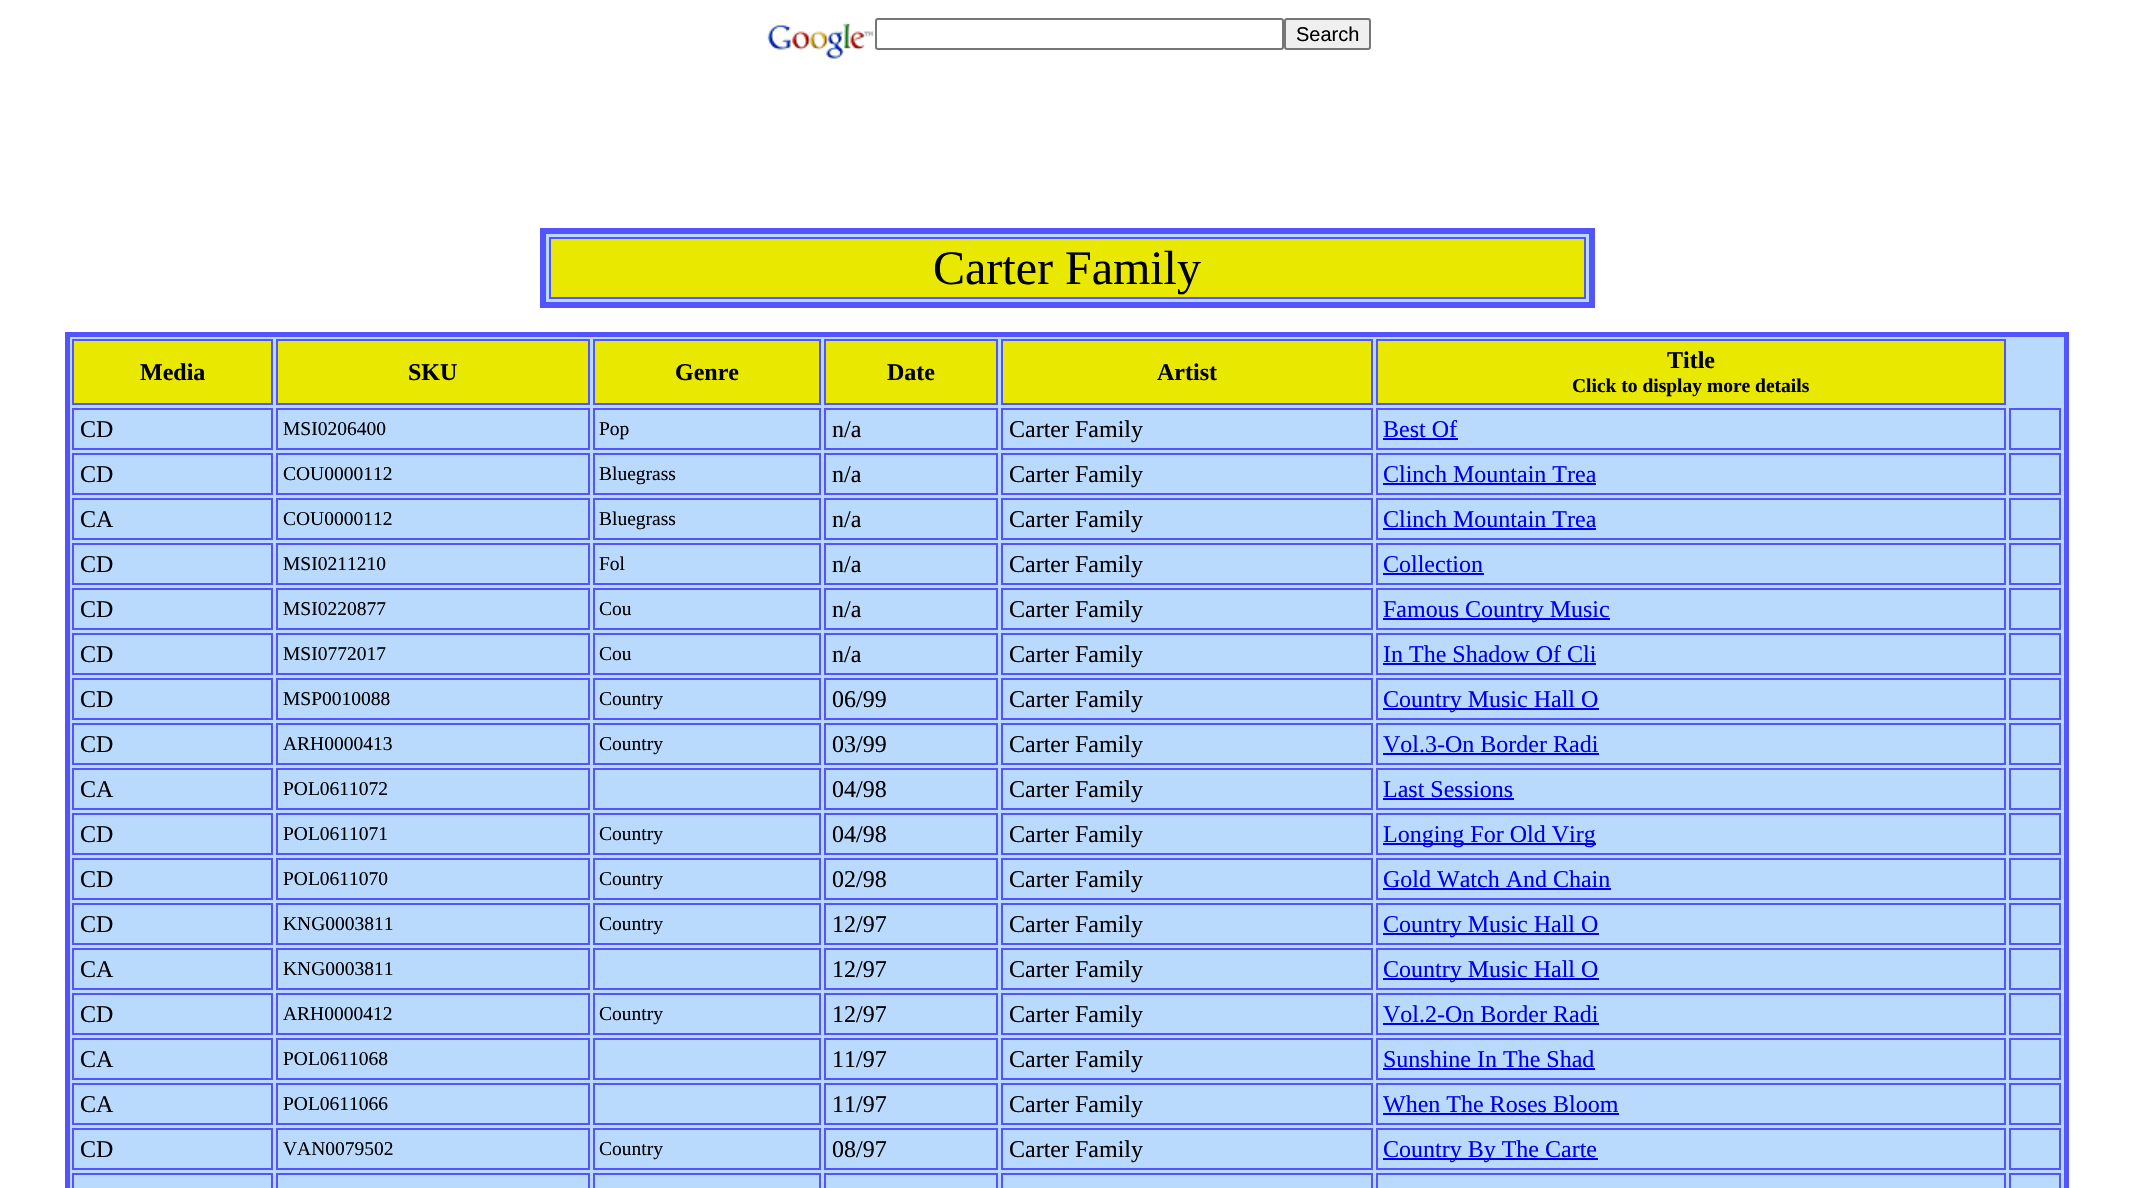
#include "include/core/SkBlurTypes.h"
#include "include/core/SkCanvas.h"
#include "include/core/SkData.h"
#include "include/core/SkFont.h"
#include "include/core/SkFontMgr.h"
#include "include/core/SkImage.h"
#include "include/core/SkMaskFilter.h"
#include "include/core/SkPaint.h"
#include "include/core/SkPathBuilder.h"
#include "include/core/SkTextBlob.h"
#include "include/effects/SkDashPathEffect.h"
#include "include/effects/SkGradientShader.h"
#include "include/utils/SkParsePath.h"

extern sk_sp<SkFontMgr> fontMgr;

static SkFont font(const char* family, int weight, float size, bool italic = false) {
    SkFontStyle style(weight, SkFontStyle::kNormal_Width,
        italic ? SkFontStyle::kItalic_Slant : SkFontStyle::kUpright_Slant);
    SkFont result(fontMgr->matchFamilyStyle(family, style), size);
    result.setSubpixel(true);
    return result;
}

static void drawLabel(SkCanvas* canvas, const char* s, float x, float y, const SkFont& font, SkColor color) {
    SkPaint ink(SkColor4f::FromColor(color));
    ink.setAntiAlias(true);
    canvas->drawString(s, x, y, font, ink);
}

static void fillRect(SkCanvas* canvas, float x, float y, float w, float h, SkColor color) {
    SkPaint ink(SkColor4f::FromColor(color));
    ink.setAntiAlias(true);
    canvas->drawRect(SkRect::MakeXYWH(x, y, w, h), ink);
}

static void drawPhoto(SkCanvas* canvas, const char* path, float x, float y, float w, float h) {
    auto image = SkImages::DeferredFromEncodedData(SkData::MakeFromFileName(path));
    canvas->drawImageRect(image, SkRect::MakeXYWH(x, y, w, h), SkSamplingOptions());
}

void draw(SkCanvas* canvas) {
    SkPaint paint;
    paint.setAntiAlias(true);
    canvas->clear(0xFFFFFFFF);
    drawPhoto(canvas, "assets/img1.png", 767, 23, 107, 36);
    paint.setStroke(true);
    paint.setStrokeWidth(2);
    paint.setColor(0xFF767676);
    canvas->drawRoundRect(SkRect::MakeXYWH(876, 19, 407, 30), 2, 2, paint);
    paint.setStroke(false);
    paint.setColor(0xFFEFEFEF);
    canvas->drawRoundRect(SkRect::MakeXYWH(1285, 19, 85, 30), 2, 2, paint);
    paint.setStroke(true);
    paint.setColor(0xFF767676);
    canvas->drawRoundRect(SkRect::MakeXYWH(1285, 19, 85, 30), 2, 2, paint);
    SkFont font1 = font("Liberation Sans", 400, 20);
    drawLabel(canvas, "Search", 1296, 41, font1, 0xFF000000);
    paint.setStroke(false);
    paint.setColor(0xFFB9D9FD);
    canvas->drawRect(SkRect::MakeXYWH(543, 231, 1049, 74), paint);
    paint.setStroke(true);
    paint.setStrokeWidth(6);
    paint.setColor(0xFF5353FF);
    canvas->drawRect(SkRect::MakeXYWH(543, 231, 1049, 74), paint);
    paint.setStroke(false);
    paint.setColor(0xFFE8E800);
    canvas->drawRect(SkRect::MakeXYWH(550, 238, 1035, 60), paint);
    paint.setStroke(true);
    paint.setStrokeWidth(2);
    paint.setColor(0xFF5353FF);
    canvas->drawRect(SkRect::MakeXYWH(550, 238, 1035, 60), paint);
    SkFont font2 = font("Liberation Serif", 400, 48);
    drawLabel(canvas, "Carter Family", 933, 284, font2, 0xFF000000);
    paint.setStroke(false);
    paint.setColor(0xFFB9D9FD);
    canvas->drawRect(SkRect::MakeXYWH(67.5f, 334.5f, 1999, 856), paint);
    paint.setStroke(true);
    paint.setStrokeWidth(5);
    paint.setColor(0xFF5353FF);
    canvas->drawRect(SkRect::MakeXYWH(67.5f, 334.5f, 1999, 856), paint);
    paint.setStroke(false);
    paint.setColor(0xFFE8E800);
    canvas->drawRect(SkRect::MakeXYWH(73, 340, 199, 64), paint);
    paint.setStroke(true);
    paint.setStrokeWidth(2);
    paint.setColor(0xFF5353FF);
    canvas->drawRect(SkRect::MakeXYWH(73, 340, 199, 64), paint);
    SkFont font3 = font("Liberation Serif", 700, 24);
    drawLabel(canvas, "Media", 140, 380, font3, 0xFF000000);
    paint.setStroke(false);
    paint.setColor(0xFFE8E800);
    canvas->drawRect(SkRect::MakeXYWH(277, 340, 312, 64), paint);
    paint.setStroke(true);
    paint.setColor(0xFF5353FF);
    canvas->drawRect(SkRect::MakeXYWH(277, 340, 312, 64), paint);
    drawLabel(canvas, "SKU", 408, 380, font3, 0xFF000000);
    paint.setStroke(false);
    paint.setColor(0xFFE8E800);
    canvas->drawRect(SkRect::MakeXYWH(594, 340, 226, 64), paint);
    paint.setStroke(true);
    paint.setColor(0xFF5353FF);
    canvas->drawRect(SkRect::MakeXYWH(594, 340, 226, 64), paint);
    drawLabel(canvas, "Genre", 675, 380, font3, 0xFF000000);
    paint.setStroke(false);
    paint.setColor(0xFFE8E800);
    canvas->drawRect(SkRect::MakeXYWH(825, 340, 172, 64), paint);
    paint.setStroke(true);
    paint.setColor(0xFF5353FF);
    canvas->drawRect(SkRect::MakeXYWH(825, 340, 172, 64), paint);
    drawLabel(canvas, "Date", 887, 380, font3, 0xFF000000);
    paint.setStroke(false);
    paint.setColor(0xFFE8E800);
    canvas->drawRect(SkRect::MakeXYWH(1002, 340, 370, 64), paint);
    paint.setStroke(true);
    paint.setColor(0xFF5353FF);
    canvas->drawRect(SkRect::MakeXYWH(1002, 340, 370, 64), paint);
    drawLabel(canvas, "Artist", 1157, 380, font3, 0xFF000000);
    paint.setStroke(false);
    paint.setColor(0xFFE8E800);
    canvas->drawRect(SkRect::MakeXYWH(1377, 340, 628, 64), paint);
    paint.setStroke(true);
    paint.setColor(0xFF5353FF);
    canvas->drawRect(SkRect::MakeXYWH(1377, 340, 628, 64), paint);
    drawLabel(canvas, "Title", 1667, 368, font3, 0xFF000000);
    SkFont font4 = font("Liberation Serif", 700, 19.5f);
    drawLabel(canvas, "Click to display more details", 1572, 392, font4, 0xFF000000);
    canvas->drawRect(SkRect::MakeXYWH(73, 409, 199, 40), paint);
    SkFont font5 = font("Liberation Serif", 400, 24);
    drawLabel(canvas, "CD", 80, 437, font5, 0xFF000000);
    canvas->drawRect(SkRect::MakeXYWH(277, 409, 312, 40), paint);
    SkFont font6 = font("Liberation Serif", 400, 19.5f);
    drawLabel(canvas, "MSI0206400", 283, 435, font6, 0xFF000000);
    canvas->drawRect(SkRect::MakeXYWH(594, 409, 226, 40), paint);
    drawLabel(canvas, "Pop", 599, 435, font6, 0xFF000000);
    canvas->drawRect(SkRect::MakeXYWH(825, 409, 172, 40), paint);
    drawLabel(canvas, "n/a", 832, 437, font5, 0xFF000000);
    canvas->drawRect(SkRect::MakeXYWH(1002, 409, 370, 40), paint);
    drawLabel(canvas, "Carter Family", 1009, 437, font5, 0xFF000000);
    canvas->drawRect(SkRect::MakeXYWH(1377, 409, 628, 40), paint);
    drawLabel(canvas, "Best Of", 1383, 437, font5, 0xFF0000EE);
    fillRect(canvas, 1383, 438, 75, 2, 0xFF0000EE);
    canvas->drawRect(SkRect::MakeXYWH(2010, 409, 50, 40), paint);
    canvas->drawRect(SkRect::MakeXYWH(73, 454, 199, 40), paint);
    drawLabel(canvas, "CD", 80, 482, font5, 0xFF000000);
    canvas->drawRect(SkRect::MakeXYWH(277, 454, 312, 40), paint);
    drawLabel(canvas, "COU0000112", 283, 480, font6, 0xFF000000);
    canvas->drawRect(SkRect::MakeXYWH(594, 454, 226, 40), paint);
    drawLabel(canvas, "Bluegrass", 599, 480, font6, 0xFF000000);
    canvas->drawRect(SkRect::MakeXYWH(825, 454, 172, 40), paint);
    drawLabel(canvas, "n/a", 832, 482, font5, 0xFF000000);
    canvas->drawRect(SkRect::MakeXYWH(1002, 454, 370, 40), paint);
    drawLabel(canvas, "Carter Family", 1009, 482, font5, 0xFF000000);
    canvas->drawRect(SkRect::MakeXYWH(1377, 454, 628, 40), paint);
    drawLabel(canvas, "Clinch Mountain Trea", 1383, 482, font5, 0xFF0000EE);
    fillRect(canvas, 1383, 483, 213, 2, 0xFF0000EE);
    canvas->drawRect(SkRect::MakeXYWH(2010, 454, 50, 40), paint);
    canvas->drawRect(SkRect::MakeXYWH(73, 499, 199, 40), paint);
    drawLabel(canvas, "CA", 80, 527, font5, 0xFF000000);
    canvas->drawRect(SkRect::MakeXYWH(277, 499, 312, 40), paint);
    drawLabel(canvas, "COU0000112", 283, 525, font6, 0xFF000000);
    canvas->drawRect(SkRect::MakeXYWH(594, 499, 226, 40), paint);
    drawLabel(canvas, "Bluegrass", 599, 525, font6, 0xFF000000);
    canvas->drawRect(SkRect::MakeXYWH(825, 499, 172, 40), paint);
    drawLabel(canvas, "n/a", 832, 527, font5, 0xFF000000);
    canvas->drawRect(SkRect::MakeXYWH(1002, 499, 370, 40), paint);
    drawLabel(canvas, "Carter Family", 1009, 527, font5, 0xFF000000);
    canvas->drawRect(SkRect::MakeXYWH(1377, 499, 628, 40), paint);
    drawLabel(canvas, "Clinch Mountain Trea", 1383, 527, font5, 0xFF0000EE);
    fillRect(canvas, 1383, 528, 213, 2, 0xFF0000EE);
    canvas->drawRect(SkRect::MakeXYWH(2010, 499, 50, 40), paint);
    canvas->drawRect(SkRect::MakeXYWH(73, 544, 199, 40), paint);
    drawLabel(canvas, "CD", 80, 572, font5, 0xFF000000);
    canvas->drawRect(SkRect::MakeXYWH(277, 544, 312, 40), paint);
    drawLabel(canvas, "MSI0211210", 283, 570, font6, 0xFF000000);
    canvas->drawRect(SkRect::MakeXYWH(594, 544, 226, 40), paint);
    drawLabel(canvas, "Fol", 599, 570, font6, 0xFF000000);
    canvas->drawRect(SkRect::MakeXYWH(825, 544, 172, 40), paint);
    drawLabel(canvas, "n/a", 832, 572, font5, 0xFF000000);
    canvas->drawRect(SkRect::MakeXYWH(1002, 544, 370, 40), paint);
    drawLabel(canvas, "Carter Family", 1009, 572, font5, 0xFF000000);
    canvas->drawRect(SkRect::MakeXYWH(1377, 544, 628, 40), paint);
    drawLabel(canvas, "Collection", 1383, 572, font5, 0xFF0000EE);
    fillRect(canvas, 1383, 573, 101, 2, 0xFF0000EE);
    canvas->drawRect(SkRect::MakeXYWH(2010, 544, 50, 40), paint);
    canvas->drawRect(SkRect::MakeXYWH(73, 589, 199, 40), paint);
    drawLabel(canvas, "CD", 80, 617, font5, 0xFF000000);
    canvas->drawRect(SkRect::MakeXYWH(277, 589, 312, 40), paint);
    drawLabel(canvas, "MSI0220877", 283, 615, font6, 0xFF000000);
    canvas->drawRect(SkRect::MakeXYWH(594, 589, 226, 40), paint);
    drawLabel(canvas, "Cou", 599, 615, font6, 0xFF000000);
    canvas->drawRect(SkRect::MakeXYWH(825, 589, 172, 40), paint);
    drawLabel(canvas, "n/a", 832, 617, font5, 0xFF000000);
    canvas->drawRect(SkRect::MakeXYWH(1002, 589, 370, 40), paint);
    drawLabel(canvas, "Carter Family", 1009, 617, font5, 0xFF000000);
    canvas->drawRect(SkRect::MakeXYWH(1377, 589, 628, 40), paint);
    fillRect(canvas, 1383, 618, 227, 2, 0xFF0000EE);
    drawLabel(canvas, "Famous Country Music", 1383, 617, font5, 0xFF0000EE);
    canvas->drawRect(SkRect::MakeXYWH(2010, 589, 50, 40), paint);
    canvas->drawRect(SkRect::MakeXYWH(73, 634, 199, 40), paint);
    drawLabel(canvas, "CD", 80, 662, font5, 0xFF000000);
    canvas->drawRect(SkRect::MakeXYWH(277, 634, 312, 40), paint);
    drawLabel(canvas, "MSI0772017", 283, 660, font6, 0xFF000000);
    canvas->drawRect(SkRect::MakeXYWH(594, 634, 226, 40), paint);
    drawLabel(canvas, "Cou", 599, 660, font6, 0xFF000000);
    canvas->drawRect(SkRect::MakeXYWH(825, 634, 172, 40), paint);
    drawLabel(canvas, "n/a", 832, 662, font5, 0xFF000000);
    canvas->drawRect(SkRect::MakeXYWH(1002, 634, 370, 40), paint);
    drawLabel(canvas, "Carter Family", 1009, 662, font5, 0xFF000000);
    canvas->drawRect(SkRect::MakeXYWH(1377, 634, 628, 40), paint);
    drawLabel(canvas, "In The Shadow Of Cli", 1383, 662, font5, 0xFF0000EE);
    fillRect(canvas, 1383, 663, 213, 2, 0xFF0000EE);
    canvas->drawRect(SkRect::MakeXYWH(2010, 634, 50, 40), paint);
    canvas->drawRect(SkRect::MakeXYWH(73, 679, 199, 40), paint);
    drawLabel(canvas, "CD", 80, 707, font5, 0xFF000000);
    canvas->drawRect(SkRect::MakeXYWH(277, 679, 312, 40), paint);
    drawLabel(canvas, "MSP0010088", 283, 705, font6, 0xFF000000);
    canvas->drawRect(SkRect::MakeXYWH(594, 679, 226, 40), paint);
    drawLabel(canvas, "Country", 599, 705, font6, 0xFF000000);
    canvas->drawRect(SkRect::MakeXYWH(825, 679, 172, 40), paint);
    drawLabel(canvas, "06/99", 832, 707, font5, 0xFF000000);
    canvas->drawRect(SkRect::MakeXYWH(1002, 679, 370, 40), paint);
    drawLabel(canvas, "Carter Family", 1009, 707, font5, 0xFF000000);
    canvas->drawRect(SkRect::MakeXYWH(1377, 679, 628, 40), paint);
    fillRect(canvas, 1383, 708, 216, 2, 0xFF0000EE);
    drawLabel(canvas, "Country Music Hall O", 1383, 707, font5, 0xFF0000EE);
    canvas->drawRect(SkRect::MakeXYWH(2010, 679, 50, 40), paint);
    canvas->drawRect(SkRect::MakeXYWH(73, 724, 199, 40), paint);
    drawLabel(canvas, "CD", 80, 752, font5, 0xFF000000);
    canvas->drawRect(SkRect::MakeXYWH(277, 724, 312, 40), paint);
    drawLabel(canvas, "ARH0000413", 283, 750, font6, 0xFF000000);
    canvas->drawRect(SkRect::MakeXYWH(594, 724, 226, 40), paint);
    drawLabel(canvas, "Country", 599, 750, font6, 0xFF000000);
    canvas->drawRect(SkRect::MakeXYWH(825, 724, 172, 40), paint);
    drawLabel(canvas, "03/99", 832, 752, font5, 0xFF000000);
    canvas->drawRect(SkRect::MakeXYWH(1002, 724, 370, 40), paint);
    drawLabel(canvas, "Carter Family", 1009, 752, font5, 0xFF000000);
    canvas->drawRect(SkRect::MakeXYWH(1377, 724, 628, 40), paint);
    drawLabel(canvas, "Vol.3-On Border Radi", 1383, 752, font5, 0xFF0000EE);
    fillRect(canvas, 1383, 753, 216, 2, 0xFF0000EE);
    canvas->drawRect(SkRect::MakeXYWH(2010, 724, 50, 40), paint);
    canvas->drawRect(SkRect::MakeXYWH(73, 769, 199, 40), paint);
    drawLabel(canvas, "CA", 80, 797, font5, 0xFF000000);
    canvas->drawRect(SkRect::MakeXYWH(277, 769, 312, 40), paint);
    drawLabel(canvas, "POL0611072", 283, 795, font6, 0xFF000000);
    canvas->drawRect(SkRect::MakeXYWH(594, 769, 226, 40), paint);
    canvas->drawRect(SkRect::MakeXYWH(825, 769, 172, 40), paint);
    drawLabel(canvas, "04/98", 832, 797, font5, 0xFF000000);
    canvas->drawRect(SkRect::MakeXYWH(1002, 769, 370, 40), paint);
    drawLabel(canvas, "Carter Family", 1009, 797, font5, 0xFF000000);
    canvas->drawRect(SkRect::MakeXYWH(1377, 769, 628, 40), paint);
    drawLabel(canvas, "Last Sessions", 1383, 797, font5, 0xFF0000EE);
    fillRect(canvas, 1383, 798, 131, 2, 0xFF0000EE);
    canvas->drawRect(SkRect::MakeXYWH(2010, 769, 50, 40), paint);
    canvas->drawRect(SkRect::MakeXYWH(73, 814, 199, 40), paint);
    drawLabel(canvas, "CD", 80, 842, font5, 0xFF000000);
    canvas->drawRect(SkRect::MakeXYWH(277, 814, 312, 40), paint);
    drawLabel(canvas, "POL0611071", 283, 840, font6, 0xFF000000);
    canvas->drawRect(SkRect::MakeXYWH(594, 814, 226, 40), paint);
    drawLabel(canvas, "Country", 599, 840, font6, 0xFF000000);
    canvas->drawRect(SkRect::MakeXYWH(825, 814, 172, 40), paint);
    drawLabel(canvas, "04/98", 832, 842, font5, 0xFF000000);
    canvas->drawRect(SkRect::MakeXYWH(1002, 814, 370, 40), paint);
    drawLabel(canvas, "Carter Family", 1009, 842, font5, 0xFF000000);
    canvas->drawRect(SkRect::MakeXYWH(1377, 814, 628, 40), paint);
    fillRect(canvas, 1383, 843, 213, 2, 0xFF0000EE);
    drawLabel(canvas, "Longing For Old Virg", 1383, 842, font5, 0xFF0000EE);
    canvas->drawRect(SkRect::MakeXYWH(2010, 814, 50, 40), paint);
    canvas->drawRect(SkRect::MakeXYWH(73, 859, 199, 40), paint);
    drawLabel(canvas, "CD", 80, 887, font5, 0xFF000000);
    canvas->drawRect(SkRect::MakeXYWH(277, 859, 312, 40), paint);
    drawLabel(canvas, "POL0611070", 283, 885, font6, 0xFF000000);
    canvas->drawRect(SkRect::MakeXYWH(594, 859, 226, 40), paint);
    drawLabel(canvas, "Country", 599, 885, font6, 0xFF000000);
    canvas->drawRect(SkRect::MakeXYWH(825, 859, 172, 40), paint);
    drawLabel(canvas, "02/98", 832, 887, font5, 0xFF000000);
    canvas->drawRect(SkRect::MakeXYWH(1002, 859, 370, 40), paint);
    drawLabel(canvas, "Carter Family", 1009, 887, font5, 0xFF000000);
    canvas->drawRect(SkRect::MakeXYWH(1377, 859, 628, 40), paint);
    drawLabel(canvas, "Gold Watch And Chain", 1383, 887, font5, 0xFF0000EE);
    fillRect(canvas, 1383, 888, 228, 2, 0xFF0000EE);
    canvas->drawRect(SkRect::MakeXYWH(2010, 859, 50, 40), paint);
    canvas->drawRect(SkRect::MakeXYWH(73, 904, 199, 40), paint);
    drawLabel(canvas, "CD", 80, 932, font5, 0xFF000000);
    canvas->drawRect(SkRect::MakeXYWH(277, 904, 312, 40), paint);
    drawLabel(canvas, "KNG0003811", 283, 930, font6, 0xFF000000);
    canvas->drawRect(SkRect::MakeXYWH(594, 904, 226, 40), paint);
    drawLabel(canvas, "Country", 599, 930, font6, 0xFF000000);
    canvas->drawRect(SkRect::MakeXYWH(825, 904, 172, 40), paint);
    drawLabel(canvas, "12/97", 832, 932, font5, 0xFF000000);
    canvas->drawRect(SkRect::MakeXYWH(1002, 904, 370, 40), paint);
    drawLabel(canvas, "Carter Family", 1009, 932, font5, 0xFF000000);
    canvas->drawRect(SkRect::MakeXYWH(1377, 904, 628, 40), paint);
    fillRect(canvas, 1383, 933, 216, 2, 0xFF0000EE);
    drawLabel(canvas, "Country Music Hall O", 1383, 932, font5, 0xFF0000EE);
    canvas->drawRect(SkRect::MakeXYWH(2010, 904, 50, 40), paint);
    canvas->drawRect(SkRect::MakeXYWH(73, 949, 199, 40), paint);
    drawLabel(canvas, "CA", 80, 977, font5, 0xFF000000);
    canvas->drawRect(SkRect::MakeXYWH(277, 949, 312, 40), paint);
    drawLabel(canvas, "KNG0003811", 283, 975, font6, 0xFF000000);
    canvas->drawRect(SkRect::MakeXYWH(594, 949, 226, 40), paint);
    canvas->drawRect(SkRect::MakeXYWH(825, 949, 172, 40), paint);
    drawLabel(canvas, "12/97", 832, 977, font5, 0xFF000000);
    canvas->drawRect(SkRect::MakeXYWH(1002, 949, 370, 40), paint);
    drawLabel(canvas, "Carter Family", 1009, 977, font5, 0xFF000000);
    canvas->drawRect(SkRect::MakeXYWH(1377, 949, 628, 40), paint);
    fillRect(canvas, 1383, 978, 216, 2, 0xFF0000EE);
    drawLabel(canvas, "Country Music Hall O", 1383, 977, font5, 0xFF0000EE);
    canvas->drawRect(SkRect::MakeXYWH(2010, 949, 50, 40), paint);
    canvas->drawRect(SkRect::MakeXYWH(73, 994, 199, 40), paint);
    drawLabel(canvas, "CD", 80, 1022, font5, 0xFF000000);
    canvas->drawRect(SkRect::MakeXYWH(277, 994, 312, 40), paint);
    drawLabel(canvas, "ARH0000412", 283, 1020, font6, 0xFF000000);
    canvas->drawRect(SkRect::MakeXYWH(594, 994, 226, 40), paint);
    drawLabel(canvas, "Country", 599, 1020, font6, 0xFF000000);
    canvas->drawRect(SkRect::MakeXYWH(825, 994, 172, 40), paint);
    drawLabel(canvas, "12/97", 832, 1022, font5, 0xFF000000);
    canvas->drawRect(SkRect::MakeXYWH(1002, 994, 370, 40), paint);
    drawLabel(canvas, "Carter Family", 1009, 1022, font5, 0xFF000000);
    canvas->drawRect(SkRect::MakeXYWH(1377, 994, 628, 40), paint);
    drawLabel(canvas, "Vol.2-On Border Radi", 1383, 1022, font5, 0xFF0000EE);
    fillRect(canvas, 1383, 1023, 216, 2, 0xFF0000EE);
    canvas->drawRect(SkRect::MakeXYWH(2010, 994, 50, 40), paint);
    canvas->drawRect(SkRect::MakeXYWH(73, 1039, 199, 40), paint);
    drawLabel(canvas, "CA", 80, 1067, font5, 0xFF000000);
    canvas->drawRect(SkRect::MakeXYWH(277, 1039, 312, 40), paint);
    drawLabel(canvas, "POL0611068", 283, 1065, font6, 0xFF000000);
    canvas->drawRect(SkRect::MakeXYWH(594, 1039, 226, 40), paint);
    canvas->drawRect(SkRect::MakeXYWH(825, 1039, 172, 40), paint);
    drawLabel(canvas, "11/97", 832, 1067, font5, 0xFF000000);
    canvas->drawRect(SkRect::MakeXYWH(1002, 1039, 370, 40), paint);
    drawLabel(canvas, "Carter Family", 1009, 1067, font5, 0xFF000000);
    canvas->drawRect(SkRect::MakeXYWH(1377, 1039, 628, 40), paint);
    drawLabel(canvas, "Sunshine In The Shad", 1383, 1067, font5, 0xFF0000EE);
    fillRect(canvas, 1383, 1068, 212, 2, 0xFF0000EE);
    canvas->drawRect(SkRect::MakeXYWH(2010, 1039, 50, 40), paint);
    canvas->drawRect(SkRect::MakeXYWH(73, 1084, 199, 40), paint);
    drawLabel(canvas, "CA", 80, 1112, font5, 0xFF000000);
    canvas->drawRect(SkRect::MakeXYWH(277, 1084, 312, 40), paint);
    drawLabel(canvas, "POL0611066", 283, 1110, font6, 0xFF000000);
    canvas->drawRect(SkRect::MakeXYWH(594, 1084, 226, 40), paint);
    canvas->drawRect(SkRect::MakeXYWH(825, 1084, 172, 40), paint);
    drawLabel(canvas, "11/97", 832, 1112, font5, 0xFF000000);
    canvas->drawRect(SkRect::MakeXYWH(1002, 1084, 370, 40), paint);
    drawLabel(canvas, "Carter Family", 1009, 1112, font5, 0xFF000000);
    canvas->drawRect(SkRect::MakeXYWH(1377, 1084, 628, 40), paint);
    drawLabel(canvas, "When The Roses Bloom", 1383, 1112, font5, 0xFF0000EE);
    fillRect(canvas, 1383, 1113, 236, 2, 0xFF0000EE);
    canvas->drawRect(SkRect::MakeXYWH(2010, 1084, 50, 40), paint);
    canvas->drawRect(SkRect::MakeXYWH(73, 1129, 199, 40), paint);
    drawLabel(canvas, "CD", 80, 1157, font5, 0xFF000000);
    canvas->drawRect(SkRect::MakeXYWH(277, 1129, 312, 40), paint);
    drawLabel(canvas, "VAN0079502", 283, 1155, font6, 0xFF000000);
    canvas->drawRect(SkRect::MakeXYWH(594, 1129, 226, 40), paint);
    drawLabel(canvas, "Country", 599, 1155, font6, 0xFF000000);
    canvas->drawRect(SkRect::MakeXYWH(825, 1129, 172, 40), paint);
    drawLabel(canvas, "08/97", 832, 1157, font5, 0xFF000000);
    canvas->drawRect(SkRect::MakeXYWH(1002, 1129, 370, 40), paint);
    drawLabel(canvas, "Carter Family", 1009, 1157, font5, 0xFF000000);
    canvas->drawRect(SkRect::MakeXYWH(1377, 1129, 628, 40), paint);
    fillRect(canvas, 1383, 1158, 215, 2, 0xFF0000EE);
    drawLabel(canvas, "Country By The Carte", 1383, 1157, font5, 0xFF0000EE);
    canvas->drawRect(SkRect::MakeXYWH(2010, 1129, 50, 40), paint);
    canvas->drawRect(SkRect::MakeXYWH(73, 1174, 199, 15), paint);
    canvas->drawRect(SkRect::MakeXYWH(277, 1174, 312, 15), paint);
    canvas->drawRect(SkRect::MakeXYWH(594, 1174, 226, 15), paint);
    canvas->drawRect(SkRect::MakeXYWH(825, 1174, 172, 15), paint);
    canvas->drawRect(SkRect::MakeXYWH(1002, 1174, 370, 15), paint);
    canvas->drawRect(SkRect::MakeXYWH(1377, 1174, 628, 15), paint);
    canvas->drawRect(SkRect::MakeXYWH(2010, 1174, 50, 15), paint);
}
